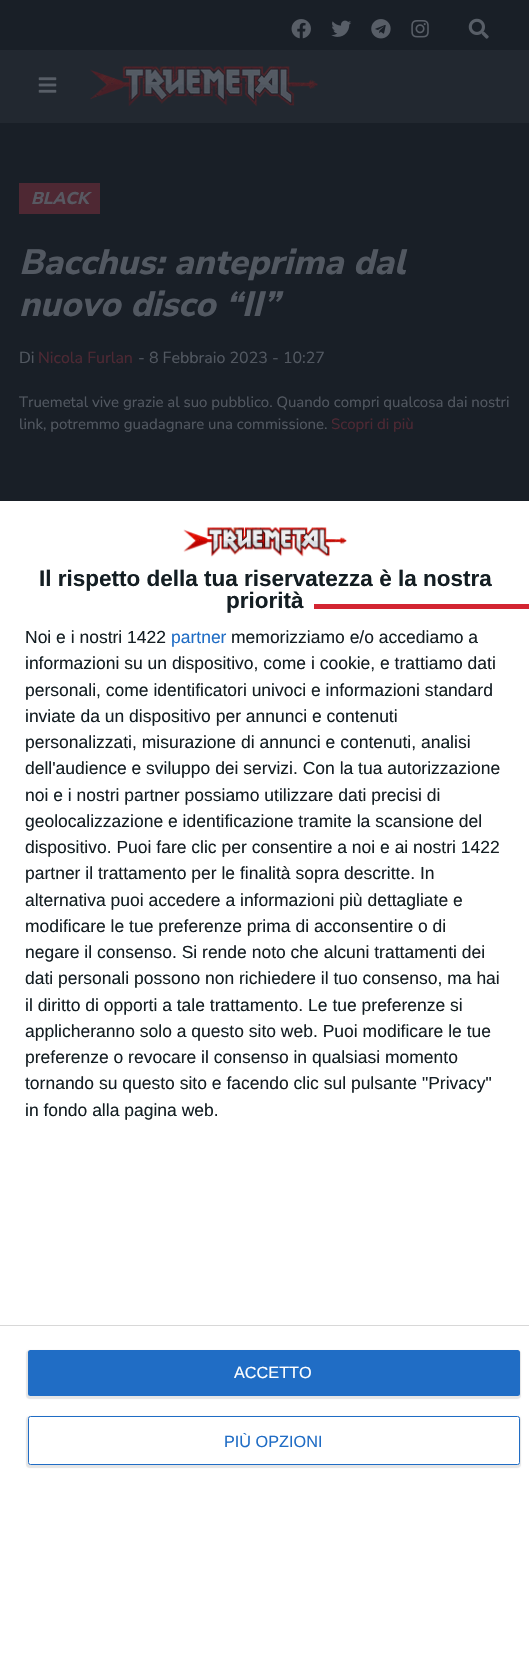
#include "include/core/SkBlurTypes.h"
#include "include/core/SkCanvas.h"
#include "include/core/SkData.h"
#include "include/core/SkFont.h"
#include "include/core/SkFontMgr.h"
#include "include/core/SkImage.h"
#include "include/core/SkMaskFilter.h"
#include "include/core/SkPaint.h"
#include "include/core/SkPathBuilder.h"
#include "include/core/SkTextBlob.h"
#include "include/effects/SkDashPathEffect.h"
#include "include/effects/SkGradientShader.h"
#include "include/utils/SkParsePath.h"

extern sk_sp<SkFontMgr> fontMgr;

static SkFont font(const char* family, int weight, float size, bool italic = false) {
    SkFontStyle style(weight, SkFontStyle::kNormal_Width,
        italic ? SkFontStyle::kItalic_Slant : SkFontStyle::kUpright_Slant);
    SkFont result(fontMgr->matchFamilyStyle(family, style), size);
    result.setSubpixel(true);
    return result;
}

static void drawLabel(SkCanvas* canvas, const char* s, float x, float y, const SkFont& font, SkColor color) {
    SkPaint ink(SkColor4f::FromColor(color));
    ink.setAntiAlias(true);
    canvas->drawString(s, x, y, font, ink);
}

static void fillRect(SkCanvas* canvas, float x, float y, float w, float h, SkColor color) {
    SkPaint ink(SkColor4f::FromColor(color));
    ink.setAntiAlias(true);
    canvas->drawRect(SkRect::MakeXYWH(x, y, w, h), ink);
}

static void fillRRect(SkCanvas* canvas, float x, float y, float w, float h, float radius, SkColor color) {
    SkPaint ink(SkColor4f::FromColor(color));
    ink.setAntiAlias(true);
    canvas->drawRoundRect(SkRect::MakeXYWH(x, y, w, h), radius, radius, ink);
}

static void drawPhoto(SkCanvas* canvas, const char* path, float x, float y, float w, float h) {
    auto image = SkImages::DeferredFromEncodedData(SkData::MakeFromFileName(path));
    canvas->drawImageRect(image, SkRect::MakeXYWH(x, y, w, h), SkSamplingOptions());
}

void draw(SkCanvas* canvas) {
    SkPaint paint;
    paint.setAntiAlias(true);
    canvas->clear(0xFF191F27);
    fillRect(canvas, 0, 50, 529, 73, 0xFF222830);
    drawPhoto(canvas, "assets/img1.png", 291, 19, 20, 20);
    drawPhoto(canvas, "assets/img2.png", 331, 20, 21, 17);
    drawPhoto(canvas, "assets/img3.png", 371, 19, 20, 20);
    drawPhoto(canvas, "assets/img4.png", 411, 20, 18, 18);
    drawPhoto(canvas, "assets/img5.png", 468, 18, 21, 21);
    drawPhoto(canvas, "assets/img6.png", 38, 77, 19, 16);
    drawPhoto(canvas, "assets/img7.png", 90, 66, 228, 41);
    fillRect(canvas, 19, 183, 81, 31, 0xFF4E2833);
    SkFont font1 = font("Nunito Sans", 800, 17, true);
    drawLabel(canvas, "BLACK", 31, 204, font1, 0xFF585962);
    SkFont font2 = font("Nunito Sans", 800, 35, true);
    drawLabel(canvas, "Bacchus: anteprima dal", 19, 274, font2, 0xFF525861);
    drawLabel(canvas, "nuovo disco “II”", 19, 316, font2, 0xFF525861);
    SkFont font3 = font("Nunito Sans", 400, 16);
    drawLabel(canvas, "Di", 19, 363, font3, 0xFF525861);
    drawLabel(canvas, "Nicola Furlan", 38, 363, font3, 0xFF4E2833);
    drawLabel(canvas, "- 8 Febbraio 2023 - 10:27", 138, 363, font3, 0xFF525861);
    SkFont font4 = font("Nunito Sans", 400, 15);
    drawLabel(canvas, "Truemetal vive grazie al suo pubblico. Quando compri qualcosa dai nostri", 19, 407, font4, 0xFF525861);
    drawLabel(canvas, "link, potremmo guadagnare una commissione.", 19, 429, font4, 0xFF525861);
    drawLabel(canvas, "Scopri di più", 331, 429, font4, 0xFF4E2833);
    fillRect(canvas, 0, 501, 529, 1168, 0xFFFFFFFF);
    drawPhoto(canvas, "assets/img8.png", 183, 527, 164, 30);
    SkFont font5 = font("Liberation Sans", 700, 22.5f);
    drawLabel(canvas, "Il rispetto della tua riservatezza è la nostra", 39, 586, font5, 0xFF141E23);
    drawLabel(canvas, "priorità", 226, 608, font5, 0xFF141E23);
    fillRect(canvas, 314, 604, 215, 5, 0xFFD32531);
    SkFont font6 = font("Liberation Sans", 400, 17.5f);
    drawLabel(canvas, "Noi e i nostri 1422", 25, 643, font6, 0xFF141E23);
    drawLabel(canvas, "partner", 171, 643, font6, 0xFF206DC5);
    drawLabel(canvas, "memorizziamo e/o accediamo a", 231, 643, font6, 0xFF141E23);
    drawLabel(canvas, "informazioni su un dispositivo, come i cookie, e trattiamo dati", 25, 669, font6, 0xFF141E23);
    drawLabel(canvas, "personali, come identificatori univoci e informazioni standard", 25, 696, font6, 0xFF141E23);
    drawLabel(canvas, "inviate da un dispositivo per annunci e contenuti", 25, 722, font6, 0xFF141E23);
    drawLabel(canvas, "personalizzati, misurazione di annunci e contenuti, analisi", 25, 748, font6, 0xFF141E23);
    drawLabel(canvas, "dell'audience e sviluppo dei servizi. Con la tua autorizzazione", 25, 774, font6, 0xFF141E23);
    drawLabel(canvas, "noi e i nostri partner possiamo utilizzare dati precisi di", 25, 801, font6, 0xFF141E23);
    drawLabel(canvas, "geolocalizzazione e identificazione tramite la scansione del", 25, 827, font6, 0xFF141E23);
    drawLabel(canvas, "dispositivo. Puoi fare clic per consentire a noi e ai nostri 1422", 25, 853, font6, 0xFF141E23);
    drawLabel(canvas, "partner il trattamento per le finalità sopra descritte. In", 25, 879, font6, 0xFF141E23);
    drawLabel(canvas, "alternativa puoi accedere a informazioni più dettagliate e", 25, 906, font6, 0xFF141E23);
    drawLabel(canvas, "modificare le tue preferenze prima di acconsentire o di", 25, 932, font6, 0xFF141E23);
    drawLabel(canvas, "negare il consenso. Si rende noto che alcuni trattamenti dei", 25, 958, font6, 0xFF141E23);
    drawLabel(canvas, "dati personali possono non richiedere il tuo consenso, ma hai", 25, 984, font6, 0xFF141E23);
    drawLabel(canvas, "il diritto di opporti a tale trattamento. Le tue preferenze si", 25, 1011, font6, 0xFF141E23);
    drawLabel(canvas, "applicheranno solo a questo sito web. Puoi modificare le tue", 25, 1037, font6, 0xFF141E23);
    drawLabel(canvas, "preferenze o revocare il consenso in qualsiasi momento", 25, 1063, font6, 0xFF141E23);
    drawLabel(canvas, "tornando su questo sito e facendo clic sul pulsante \"Privacy\"", 25, 1089, font6, 0xFF141E23);
    drawLabel(canvas, "in fondo alla pagina web.", 25, 1116, font6, 0xFF141E23);
    fillRect(canvas, 0, 1325, 529, 1, 0xFFD8D8D8);
    paint.setColor(0x1A000000);
    paint.setMaskFilter(SkMaskFilter::MakeBlur(kNormal_SkBlurStyle, 0.5f));
    canvas->drawRoundRect(SkRect::MakeXYWH(26, 1350, 495, 49), 4, 4, paint);
    paint.setMaskFilter(nullptr);
    fillRRect(canvas, 28, 1350, 492, 46, 2.5f, 0xFF206DC5);
    SkFont font7 = font("Liberation Sans", 400, 16.25f);
    drawLabel(canvas, "ACCETTO", 234, 1378, font7, 0xFFFFFFFF);
    paint.setMaskFilter(SkMaskFilter::MakeBlur(kNormal_SkBlurStyle, 0.5f));
    canvas->drawRoundRect(SkRect::MakeXYWH(26, 1416, 495, 52), 4, 4, paint);
    paint.setMaskFilter(nullptr);
    paint.setColor(0xFFFFFFFF);
    canvas->drawRoundRect(SkRect::MakeXYWH(28.5f, 1416.5f, 491, 48), 2, 2, paint);
    paint.setStroke(true);
    paint.setStrokeWidth(1);
    paint.setColor(0xFF206DC5);
    canvas->drawRoundRect(SkRect::MakeXYWH(28.5f, 1416.5f, 491, 48), 2, 2, paint);
    drawLabel(canvas, "PIÙ OPZIONI", 224, 1447, font7, 0xFF206DC5);
}
